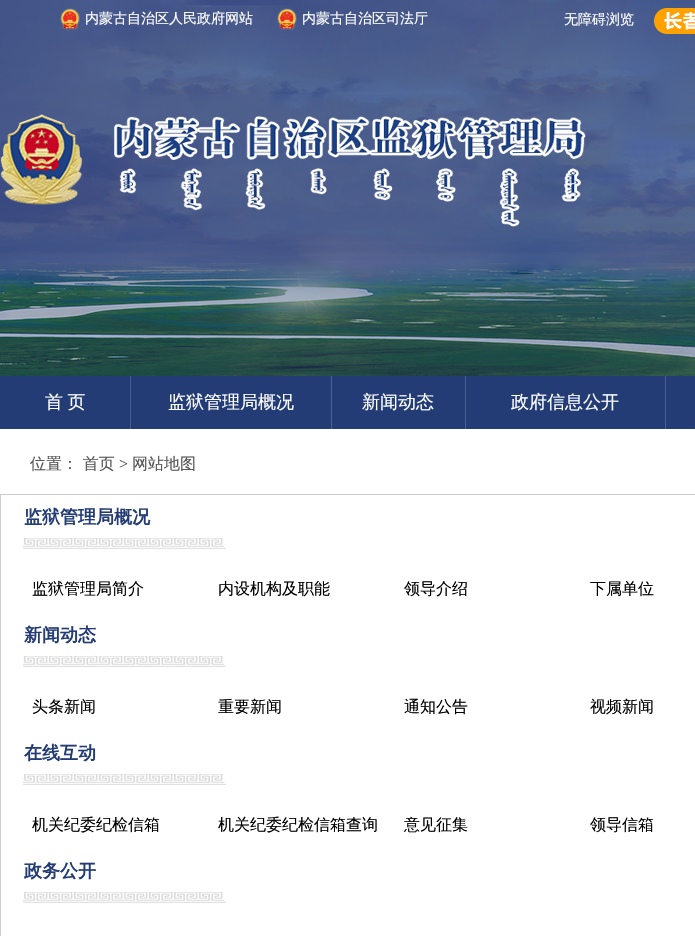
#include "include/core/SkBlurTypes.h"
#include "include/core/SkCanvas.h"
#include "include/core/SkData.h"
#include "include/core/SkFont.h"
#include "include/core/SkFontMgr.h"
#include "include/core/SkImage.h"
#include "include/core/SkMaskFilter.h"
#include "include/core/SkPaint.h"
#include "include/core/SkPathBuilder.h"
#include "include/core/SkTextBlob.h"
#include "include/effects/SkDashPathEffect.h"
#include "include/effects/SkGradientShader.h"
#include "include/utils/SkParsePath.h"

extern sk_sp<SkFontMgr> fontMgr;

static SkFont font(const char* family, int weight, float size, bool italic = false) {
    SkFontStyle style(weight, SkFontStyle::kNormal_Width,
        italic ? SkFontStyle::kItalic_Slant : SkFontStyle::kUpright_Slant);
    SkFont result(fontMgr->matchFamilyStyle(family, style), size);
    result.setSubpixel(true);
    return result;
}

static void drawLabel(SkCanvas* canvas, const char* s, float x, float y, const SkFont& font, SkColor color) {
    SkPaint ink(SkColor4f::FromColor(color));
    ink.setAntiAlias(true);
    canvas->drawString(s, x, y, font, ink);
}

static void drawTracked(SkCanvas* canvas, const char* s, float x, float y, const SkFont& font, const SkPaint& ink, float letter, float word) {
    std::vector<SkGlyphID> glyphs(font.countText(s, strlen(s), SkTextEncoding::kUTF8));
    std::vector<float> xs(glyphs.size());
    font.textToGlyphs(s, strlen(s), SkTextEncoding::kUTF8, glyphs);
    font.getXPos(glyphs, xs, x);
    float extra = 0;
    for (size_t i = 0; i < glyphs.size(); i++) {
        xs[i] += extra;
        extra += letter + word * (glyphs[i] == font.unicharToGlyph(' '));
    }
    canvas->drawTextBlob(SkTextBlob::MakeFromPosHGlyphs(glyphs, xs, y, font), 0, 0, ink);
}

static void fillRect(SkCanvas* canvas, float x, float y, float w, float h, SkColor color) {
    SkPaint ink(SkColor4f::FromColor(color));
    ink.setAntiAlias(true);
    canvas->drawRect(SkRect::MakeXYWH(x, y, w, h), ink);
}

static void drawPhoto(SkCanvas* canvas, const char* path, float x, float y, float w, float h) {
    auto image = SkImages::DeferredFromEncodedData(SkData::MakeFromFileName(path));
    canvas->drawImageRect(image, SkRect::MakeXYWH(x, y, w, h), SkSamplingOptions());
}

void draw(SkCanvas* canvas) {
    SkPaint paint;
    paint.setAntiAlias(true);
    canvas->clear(0xFFFFFFFF);
    drawPhoto(canvas, "assets/img1.png", 0, 0, 695, 376);
    drawPhoto(canvas, "assets/img2.png", 60, 8, 20, 22);
    SkFont font1 = font("WenQuanYi Zen Hei", 500, 14);
    drawLabel(canvas, "内蒙古自治区人民政府网站", 85, 23, font1, 0xFFFFFFFF);
    drawPhoto(canvas, "assets/img3.png", 277, 8, 20, 22);
    drawLabel(canvas, "内蒙古自治区司法厅", 302, 23, font1, 0xFFFFFFFF);
    drawLabel(canvas, "无障碍浏览", 564, 24, font1, 0xFFFFFFFF);
    drawPhoto(canvas, "assets/img4.png", 654, 8, 41, 26);
    fillRect(canvas, 0, 376, 695, 53, 0xFF233C75);
    SkFont font2 = font("WenQuanYi Zen Hei", 500, 18);
    paint.setColor(0xFFFFFFFF);
    drawTracked(canvas, "首 页", 45, 408, font2, paint, 0, -1);
    fillRect(canvas, 130, 376, 1, 53, 0xFF465F97);
    drawLabel(canvas, "监狱管理局概况", 168, 408, font2, 0xFFFFFFFF);
    fillRect(canvas, 331, 376, 1, 53, 0xFF465F97);
    drawLabel(canvas, "新闻动态", 362, 408, font2, 0xFFFFFFFF);
    fillRect(canvas, 465, 376, 1, 53, 0xFF465F97);
    drawLabel(canvas, "政府信息公开", 511, 408, font2, 0xFFFFFFFF);
    fillRect(canvas, 665, 376, 1, 53, 0xFF465F97);
    SkFont font3 = font("WenQuanYi Zen Hei", 500, 16);
    drawLabel(canvas, "位置： 首页", 30, 469, font3, 0xFF565656);
    SkFont font4 = font("Liberation Serif", 400, 16);
    drawLabel(canvas, ">", 119, 469, font4, 0xFF565656);
    drawLabel(canvas, "网站地图", 132, 469, font3, 0xFF565656);
    paint.setStroke(true);
    paint.setStrokeWidth(1);
    paint.setColor(0xFFCDCDCD);
    canvas->drawRect(SkRect::MakeXYWH(0.5f, 494.5f, 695, 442), paint);
    drawPhoto(canvas, "assets/img5.png", 23, 538, 203, 11);
    SkFont font5 = font("WenQuanYi Zen Hei", 700, 18);
    drawLabel(canvas, "监狱管理局概况", 24, 523, font5, 0xFF233C75);
    drawLabel(canvas, "监狱管理局简介", 32, 594, font3, 0xFF000000);
    drawLabel(canvas, "内设机构及职能", 218, 594, font3, 0xFF000000);
    drawLabel(canvas, "领导介绍", 404, 594, font3, 0xFF000000);
    drawLabel(canvas, "下属单位", 590, 594, font3, 0xFF000000);
    drawPhoto(canvas, "assets/img5.png", 23, 656, 203, 11);
    drawLabel(canvas, "新闻动态", 24, 641, font5, 0xFF233C75);
    drawLabel(canvas, "头条新闻", 32, 712, font3, 0xFF000000);
    drawLabel(canvas, "重要新闻", 218, 712, font3, 0xFF000000);
    drawLabel(canvas, "通知公告", 404, 712, font3, 0xFF000000);
    drawLabel(canvas, "视频新闻", 590, 712, font3, 0xFF000000);
    drawPhoto(canvas, "assets/img5.png", 23, 774, 203, 11);
    drawLabel(canvas, "在线互动", 24, 759, font5, 0xFF233C75);
    drawLabel(canvas, "机关纪委纪检信箱", 32, 830, font3, 0xFF000000);
    drawLabel(canvas, "机关纪委纪检信箱查询", 218, 830, font3, 0xFF000000);
    drawLabel(canvas, "意见征集", 404, 830, font3, 0xFF000000);
    drawLabel(canvas, "领导信箱", 590, 830, font3, 0xFF000000);
    drawPhoto(canvas, "assets/img5.png", 23, 892, 203, 11);
    drawLabel(canvas, "政务公开", 24, 877, font5, 0xFF233C75);
}
